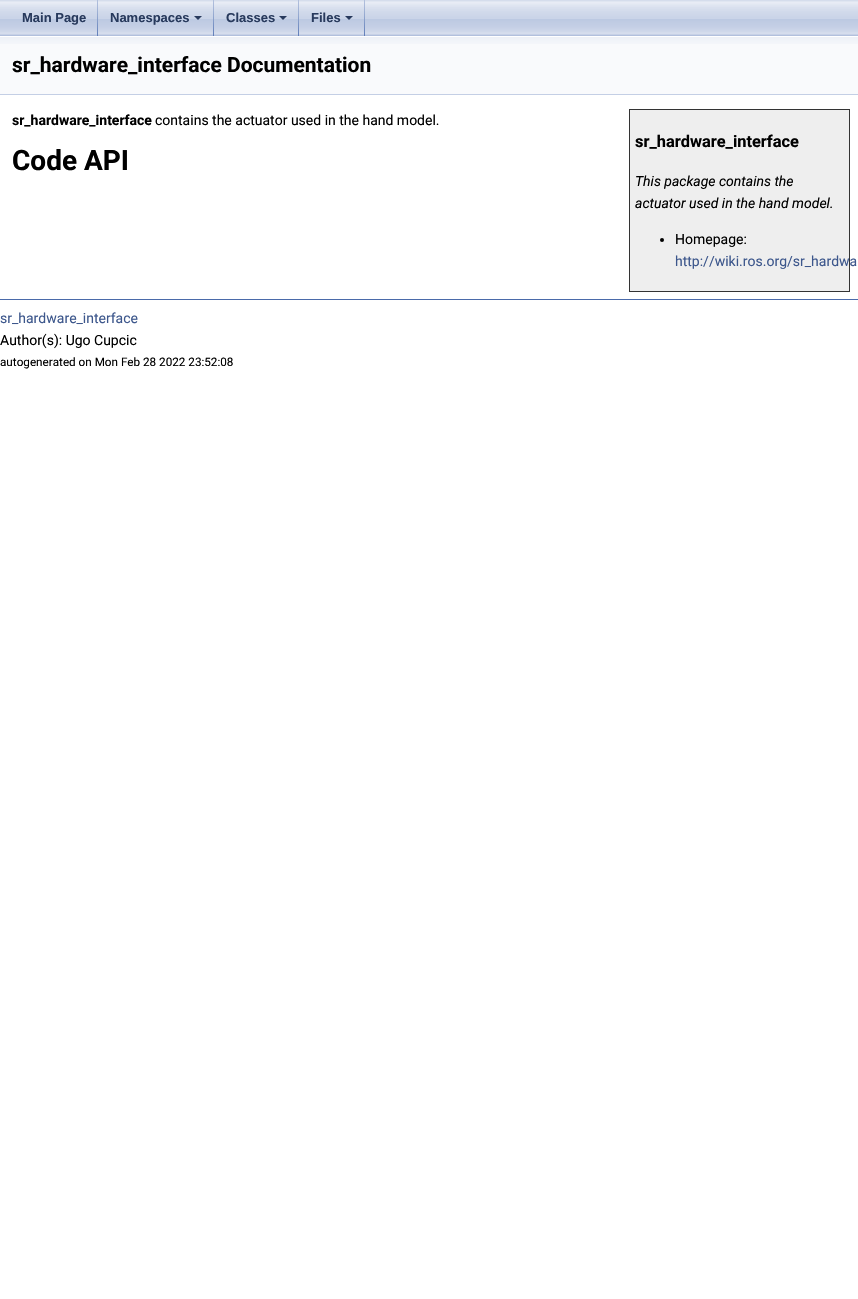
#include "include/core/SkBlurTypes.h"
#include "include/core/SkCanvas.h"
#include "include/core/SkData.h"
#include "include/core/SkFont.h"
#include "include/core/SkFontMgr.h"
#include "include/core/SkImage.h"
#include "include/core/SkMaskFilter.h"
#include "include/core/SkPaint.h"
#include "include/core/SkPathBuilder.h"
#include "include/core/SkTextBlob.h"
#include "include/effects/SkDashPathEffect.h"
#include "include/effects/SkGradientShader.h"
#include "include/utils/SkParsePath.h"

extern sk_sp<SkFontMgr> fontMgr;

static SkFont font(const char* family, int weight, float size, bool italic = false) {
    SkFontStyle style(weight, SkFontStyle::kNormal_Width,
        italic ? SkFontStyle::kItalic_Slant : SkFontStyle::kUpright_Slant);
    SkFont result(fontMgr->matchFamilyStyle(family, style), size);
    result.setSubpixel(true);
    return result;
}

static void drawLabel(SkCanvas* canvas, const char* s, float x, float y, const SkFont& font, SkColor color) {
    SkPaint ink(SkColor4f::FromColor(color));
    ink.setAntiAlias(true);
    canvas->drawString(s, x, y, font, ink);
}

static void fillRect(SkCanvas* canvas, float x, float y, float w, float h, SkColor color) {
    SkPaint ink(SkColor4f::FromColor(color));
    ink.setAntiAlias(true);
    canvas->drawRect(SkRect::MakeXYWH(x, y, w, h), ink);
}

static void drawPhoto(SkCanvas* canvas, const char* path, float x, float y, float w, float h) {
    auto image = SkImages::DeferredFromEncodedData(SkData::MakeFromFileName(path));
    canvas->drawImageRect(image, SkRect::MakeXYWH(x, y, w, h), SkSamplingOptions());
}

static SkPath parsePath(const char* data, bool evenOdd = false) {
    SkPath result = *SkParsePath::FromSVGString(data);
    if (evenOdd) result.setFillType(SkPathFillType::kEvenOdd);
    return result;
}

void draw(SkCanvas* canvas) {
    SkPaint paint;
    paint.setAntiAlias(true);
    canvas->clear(0xFFFFFFFF);
    drawPhoto(canvas, "assets/img1.png", 0, 0, 858, 36);
    drawPhoto(canvas, "assets/img2.png", 97, 0, 1, 36);
    SkFont font1 = font("Liberation Sans", 700, 13);
    drawLabel(canvas, "Main Page", 22, 22, font1, 0xFF283A5D);
    drawPhoto(canvas, "assets/img2.png", 213, 0, 1, 36);
    drawLabel(canvas, "Namespaces", 110, 22, font1, 0xFF283A5D);
    paint.setColor(0xFF283A5D);
    canvas->drawPath(parsePath("M194 16H202L198 20Z"), paint);
    drawPhoto(canvas, "assets/img2.png", 298, 0, 1, 36);
    drawLabel(canvas, "Classes", 226, 22, font1, 0xFF283A5D);
    canvas->drawPath(parsePath("M279 16H287L283 20Z"), paint);
    drawPhoto(canvas, "assets/img2.png", 364, 0, 1, 36);
    drawLabel(canvas, "Files", 311, 22, font1, 0xFF283A5D);
    canvas->drawPath(parsePath("M345 16H353L349 20Z"), paint);
    fillRect(canvas, 0, 44, 858, 50, 0xFFF9FAFC);
    drawPhoto(canvas, "assets/img3.png", 0, 36, 858, 8);
    fillRect(canvas, 0, 94, 858, 1, 0xFFC4CFE5);
    SkFont font2 = font("Roboto", 700, 21);
    drawLabel(canvas, "sr_hardware_interface Documentation", 12, 72, font2, 0xFF000000);
    SkFont font3 = font("Roboto", 700, 14);
    drawLabel(canvas, "sr_hardware_interface", 12, 125, font3, 0xFF000000);
    SkFont font4 = font("Roboto", 400, 14);
    drawLabel(canvas, "contains the actuator used in the hand model.", 155, 125, font4, 0xFF000000);
    SkFont font5 = font("Roboto", 700, 28);
    drawLabel(canvas, "Code API", 12, 170, font5, 0xFF000000);
    paint.setColor(0xFFEEEEEE);
    canvas->drawRect(SkRect::MakeXYWH(629.5f, 109.5f, 220, 182), paint);
    paint.setStroke(true);
    paint.setStrokeWidth(1);
    paint.setColor(0xFF333333);
    canvas->drawRect(SkRect::MakeXYWH(629.5f, 109.5f, 220, 182), paint);
    SkFont font6 = font("Roboto", 700, 16.4f);
    drawLabel(canvas, "sr_hardware_interface", 635, 147, font6, 0xFF000000);
    SkFont font7 = font("Roboto", 400, 14, true);
    drawLabel(canvas, "This package contains the", 635, 186, font7, 0xFF000000);
    drawLabel(canvas, "actuator used in the hand model.", 635, 208, font7, 0xFF000000);
    paint.setStroke(false);
    paint.setColor(0xFF000000);
    canvas->drawCircle(662, 240, 2, paint);
    drawLabel(canvas, "Homepage:", 675, 244, font4, 0xFF000000);
    drawLabel(canvas, "http://wiki.ros.org/sr_hardwa", 675, 266, font4, 0xFF3D578C);
    fillRect(canvas, 0, 299, 858, 1, 0xFF4A6AAA);
    drawLabel(canvas, "sr_hardware_interface", 0, 323, font4, 0xFF3D578C);
    drawLabel(canvas, "Author(s): Ugo Cupcic", 0, 345, font4, 0xFF000000);
    SkFont font8 = font("Roboto", 400, 11.7f);
    drawLabel(canvas, "autogenerated on Mon Feb 28 2022 23:52:08", 0, 366, font8, 0xFF000000);
}
